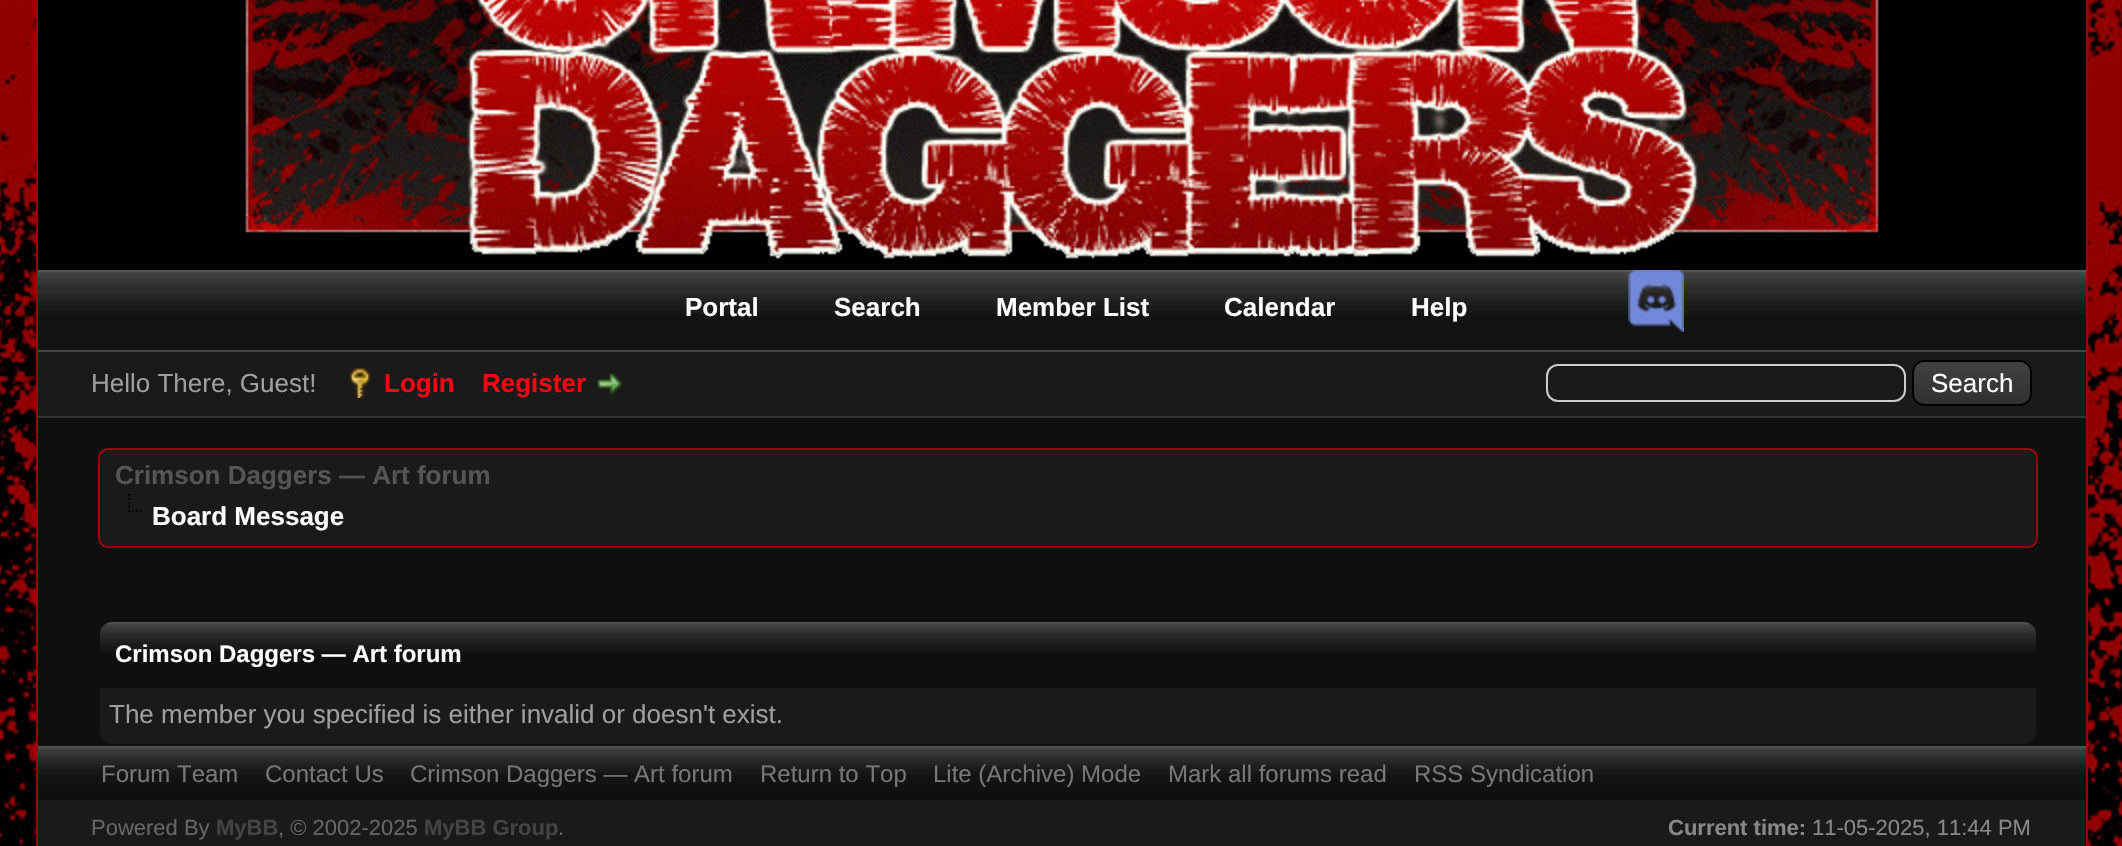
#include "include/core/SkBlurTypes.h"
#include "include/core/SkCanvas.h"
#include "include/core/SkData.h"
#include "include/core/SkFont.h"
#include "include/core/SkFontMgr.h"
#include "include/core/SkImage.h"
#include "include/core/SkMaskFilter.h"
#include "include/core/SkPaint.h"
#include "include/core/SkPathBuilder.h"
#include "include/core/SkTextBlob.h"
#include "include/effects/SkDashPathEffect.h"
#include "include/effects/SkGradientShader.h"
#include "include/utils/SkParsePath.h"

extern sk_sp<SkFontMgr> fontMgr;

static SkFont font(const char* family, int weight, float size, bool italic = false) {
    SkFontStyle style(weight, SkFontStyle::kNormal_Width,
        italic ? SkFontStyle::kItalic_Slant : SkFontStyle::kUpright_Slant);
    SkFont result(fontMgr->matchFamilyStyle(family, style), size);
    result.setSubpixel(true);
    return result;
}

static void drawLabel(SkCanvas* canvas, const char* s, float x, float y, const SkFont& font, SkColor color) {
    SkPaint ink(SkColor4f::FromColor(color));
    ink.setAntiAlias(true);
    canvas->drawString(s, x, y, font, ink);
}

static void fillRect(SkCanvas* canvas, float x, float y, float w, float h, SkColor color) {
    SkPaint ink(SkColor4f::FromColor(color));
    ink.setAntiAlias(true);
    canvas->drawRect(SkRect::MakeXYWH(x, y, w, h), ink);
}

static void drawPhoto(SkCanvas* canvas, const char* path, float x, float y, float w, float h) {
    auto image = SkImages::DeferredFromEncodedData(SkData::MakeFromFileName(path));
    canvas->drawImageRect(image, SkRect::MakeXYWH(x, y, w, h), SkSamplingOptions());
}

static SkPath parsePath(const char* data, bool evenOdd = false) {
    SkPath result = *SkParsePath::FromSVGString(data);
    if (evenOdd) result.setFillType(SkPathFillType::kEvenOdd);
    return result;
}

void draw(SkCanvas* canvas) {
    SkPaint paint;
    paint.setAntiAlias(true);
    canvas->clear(0xFF000000);
    drawPhoto(canvas, "assets/img1.png", 0, 0, 2122, 846);
    paint.setStroke(true);
    paint.setStrokeWidth(2);
    paint.setColor(0xFF9C000C);
    canvas->drawRect(SkRect::MakeXYWH(37, -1, 2050, 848), paint);
    fillRect(canvas, 38, 0, 2048, 270, 0xFF000000);
    drawPhoto(canvas, "assets/img2.png", 245, 0, 1634, 259);
    drawPhoto(canvas, "assets/img3.png", 38, 270, 2048, 80);
    SkFont font1 = font("Liberation Sans", 700, 26);
    drawLabel(canvas, "Portal", 685, 316, font1, 0xFFFFFFFF);
    drawLabel(canvas, "Search", 834, 316, font1, 0xFFFFFFFF);
    drawLabel(canvas, "Member List", 996, 316, font1, 0xFFFFFFFF);
    drawLabel(canvas, "Calendar", 1224, 316, font1, 0xFFFFFFFF);
    drawLabel(canvas, "Help", 1411, 316, font1, 0xFFFFFFFF);
    drawPhoto(canvas, "assets/img4.png", 1628, 270, 56, 62);
    fillRect(canvas, 38, 352, 2048, 64, 0xFF1A1A1A);
    fillRect(canvas, 38, 350, 2048, 2, 0xFF444444);
    fillRect(canvas, 38, 416, 2048, 2, 0xFF333333);
    SkFont font2 = font("Liberation Sans", 400, 26);
    drawLabel(canvas, "Hello There, Guest!", 91, 392, font2, 0xFF9F9F9F);
    drawPhoto(canvas, "assets/img5.png", 349, 368, 22, 30);
    drawLabel(canvas, "Login", 384, 392, font1, 0xFFFF0013);
    drawLabel(canvas, "Register", 482, 392, font1, 0xFFFF0013);
    drawPhoto(canvas, "assets/img6.png", 597, 373, 26, 22);
    paint.setColor(0xFFCCCCCC);
    canvas->drawRoundRect(SkRect::MakeXYWH(1547, 365, 358, 36), 11, 11, paint);
    drawPhoto(canvas, "assets/img7.png", 1912, 362, 120, 44);
    paint.setColor(0xFF000000);
    canvas->drawRoundRect(SkRect::MakeXYWH(1913, 361, 118, 44), 11, 11, paint);
    drawLabel(canvas, "Search", 1931, 392, font2, 0xFFFFFFFF);
    fillRect(canvas, 38, 418, 2048, 328, 0xFF0F0F0F);
    paint.setStroke(false);
    paint.setColor(0xFF1A1A1A);
    canvas->drawRoundRect(SkRect::MakeXYWH(99, 449, 1938, 98), 9, 9, paint);
    paint.setStroke(true);
    paint.setColor(0xFF9C000C);
    canvas->drawRoundRect(SkRect::MakeXYWH(99, 449, 1938, 98), 9, 9, paint);
    drawLabel(canvas, "Crimson Daggers — Art forum", 115, 484, font1, 0xFF555555);
    drawPhoto(canvas, "assets/img8.png", 127, 494, 19, 19);
    drawLabel(canvas, "Board Message", 152, 525, font1, 0xFFFFFFFF);
    drawPhoto(canvas, "assets/img9.png", 100, 622, 1936, 30);
    SkFont font3 = font("Liberation Sans", 700, 24);
    drawLabel(canvas, "Crimson Daggers — Art forum", 115, 662, font3, 0xFFFFFFFF);
    paint.setStroke(false);
    paint.setColor(0xFF1A1A1A);
    canvas->drawPath(parsePath("M100 688H2036V732C2036 738.5 2030.5 744 2024 744H112C105.5 744 100 738.5 100 732Z"), paint);
    drawLabel(canvas, "The member you specified is either invalid or doesn't exist.", 109, 723, font2, 0xFF9F9F9F);
    fillRect(canvas, 38, 800, 2048, 46, 0xFF1A1A1A);
    drawPhoto(canvas, "assets/img10.png", 38, 746, 2048, 54);
    SkFont font4 = font("Liberation Sans", 400, 24);
    drawLabel(canvas, "Forum Team", 101, 782, font4, 0xFF777777);
    drawLabel(canvas, "Contact Us", 265, 782, font4, 0xFF777777);
    drawLabel(canvas, "Crimson Daggers — Art forum", 410, 782, font4, 0xFF777777);
    drawLabel(canvas, "Return to Top", 760, 782, font4, 0xFF777777);
    drawLabel(canvas, "Lite (Archive) Mode", 933, 782, font4, 0xFF777777);
    drawLabel(canvas, "Mark all forums read", 1168, 782, font4, 0xFF777777);
    drawLabel(canvas, "RSS Syndication", 1414, 782, font4, 0xFF777777);
    SkFont font5 = font("Liberation Sans", 400, 22);
    drawLabel(canvas, "Powered By", 91, 835, font5, 0xFF666666);
    SkFont font6 = font("Liberation Sans", 700, 22);
    drawLabel(canvas, "MyBB", 216, 835, font6, 0xFF444444);
    drawLabel(canvas, ", © 2002-2025", 278, 835, font5, 0xFF666666);
    drawLabel(canvas, "MyBB Group", 424, 835, font6, 0xFF444444);
    drawLabel(canvas, ".", 558, 835, font5, 0xFF666666);
    drawLabel(canvas, "Current time:", 1668, 835, font6, 0xFF888888);
    drawLabel(canvas, "11-05-2025, 11:44 PM", 1812, 835, font5, 0xFF888888);
}
